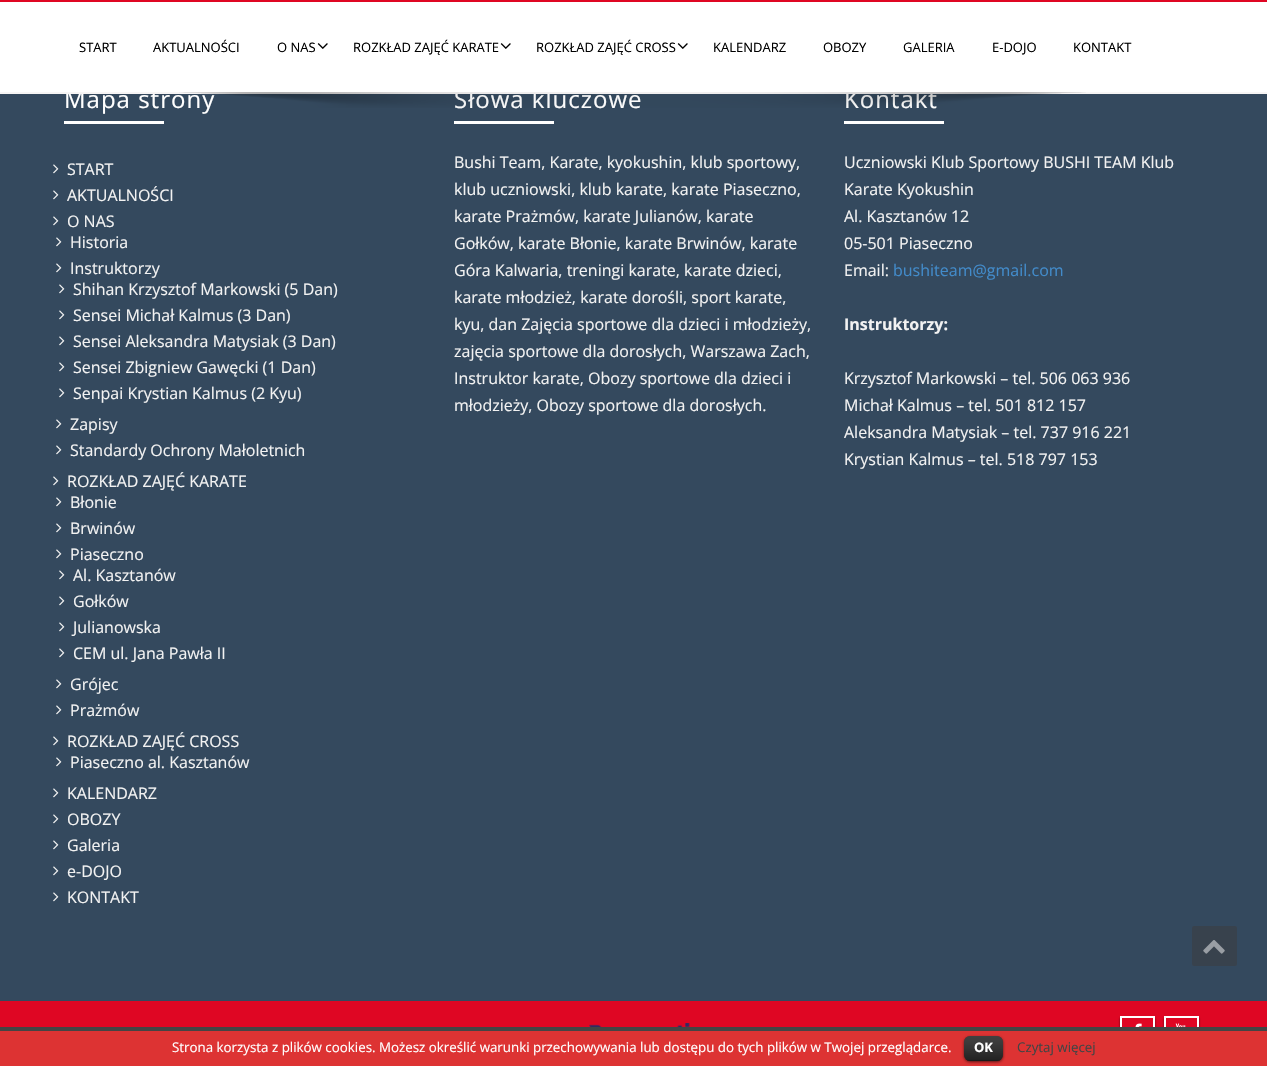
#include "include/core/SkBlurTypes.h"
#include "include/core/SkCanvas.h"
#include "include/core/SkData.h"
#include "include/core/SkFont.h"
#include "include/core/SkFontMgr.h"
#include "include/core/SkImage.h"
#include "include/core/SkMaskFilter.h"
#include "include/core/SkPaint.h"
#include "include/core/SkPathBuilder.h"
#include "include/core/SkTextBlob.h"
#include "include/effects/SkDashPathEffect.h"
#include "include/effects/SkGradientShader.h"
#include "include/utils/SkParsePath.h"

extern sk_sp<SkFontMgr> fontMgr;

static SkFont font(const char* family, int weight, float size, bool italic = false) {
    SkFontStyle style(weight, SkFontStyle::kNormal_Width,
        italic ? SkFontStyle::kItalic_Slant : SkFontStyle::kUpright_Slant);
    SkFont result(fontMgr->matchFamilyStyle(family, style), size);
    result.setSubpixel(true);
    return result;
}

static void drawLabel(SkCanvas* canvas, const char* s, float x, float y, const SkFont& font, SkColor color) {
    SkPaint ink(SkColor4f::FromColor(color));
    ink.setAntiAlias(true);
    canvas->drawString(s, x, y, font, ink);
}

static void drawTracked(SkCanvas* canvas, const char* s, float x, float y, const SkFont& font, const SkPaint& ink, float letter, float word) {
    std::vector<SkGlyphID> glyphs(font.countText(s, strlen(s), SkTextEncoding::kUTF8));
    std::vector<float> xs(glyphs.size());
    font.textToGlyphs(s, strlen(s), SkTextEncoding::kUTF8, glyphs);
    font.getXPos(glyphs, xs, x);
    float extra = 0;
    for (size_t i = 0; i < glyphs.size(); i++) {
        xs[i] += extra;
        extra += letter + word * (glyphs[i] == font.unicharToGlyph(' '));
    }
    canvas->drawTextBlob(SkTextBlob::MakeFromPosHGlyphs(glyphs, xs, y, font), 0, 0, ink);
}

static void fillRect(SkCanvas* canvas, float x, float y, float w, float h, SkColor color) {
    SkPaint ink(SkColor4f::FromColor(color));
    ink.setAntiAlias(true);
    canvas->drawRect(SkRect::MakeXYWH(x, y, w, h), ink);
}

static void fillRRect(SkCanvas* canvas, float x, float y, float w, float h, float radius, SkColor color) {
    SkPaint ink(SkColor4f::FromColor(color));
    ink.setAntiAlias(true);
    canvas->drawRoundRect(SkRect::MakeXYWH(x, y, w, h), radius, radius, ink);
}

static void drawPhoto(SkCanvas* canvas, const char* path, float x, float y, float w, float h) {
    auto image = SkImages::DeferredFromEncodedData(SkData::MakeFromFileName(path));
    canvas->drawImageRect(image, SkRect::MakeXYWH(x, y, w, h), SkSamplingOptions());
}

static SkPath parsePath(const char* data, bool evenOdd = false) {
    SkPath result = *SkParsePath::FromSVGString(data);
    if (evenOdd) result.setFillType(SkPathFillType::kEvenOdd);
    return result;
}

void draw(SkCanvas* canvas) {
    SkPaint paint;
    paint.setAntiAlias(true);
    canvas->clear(0xFF34495E);
    fillRect(canvas, 0, 2, 1267, 90, 0xFFFFFFFF);
    fillRect(canvas, 0, 0, 1267, 2, 0xFFDF0623);
    SkFont font1 = font("Open Sans", 400, 24);
    paint.setColor(0xFFFFFFFF);
    drawTracked(canvas, "Mapa strony", 64, 108, font1, paint, 1, 0);
    drawTracked(canvas, "Słowa kluczowe", 454, 108, font1, paint, 1, 0);
    drawTracked(canvas, "Kontakt", 844, 108, font1, paint, 1, 0);
    fillRect(canvas, 0, 92, 1267, 2, 0xFFF7F5F5);
    SkFont font2 = font("Open Sans", 400, 13);
    drawLabel(canvas, "START", 79, 52, font2, 0xFF000000);
    drawLabel(canvas, "AKTUALNOŚCI", 153, 52, font2, 0xFF000000);
    drawLabel(canvas, "O NAS", 277, 52, font2, 0xFF000000);
    drawPhoto(canvas, "assets/img1.png", 317, 43, 11, 6);
    drawLabel(canvas, "ROZKŁAD ZAJĘĆ KARATE", 353, 52, font2, 0xFF000000);
    drawPhoto(canvas, "assets/img1.png", 500, 43, 11, 6);
    drawLabel(canvas, "ROZKŁAD ZAJĘĆ CROSS", 536, 52, font2, 0xFF000000);
    drawPhoto(canvas, "assets/img1.png", 677, 43, 11, 6);
    drawLabel(canvas, "KALENDARZ", 713, 52, font2, 0xFF000000);
    drawLabel(canvas, "OBOZY", 823, 52, font2, 0xFF000000);
    drawLabel(canvas, "GALERIA", 903, 52, font2, 0xFF000000);
    drawLabel(canvas, "E-DOJO", 992, 52, font2, 0xFF000000);
    drawLabel(canvas, "KONTAKT", 1073, 52, font2, 0xFF000000);
    drawPhoto(canvas, "assets/img2.png", 179, 92, 907, 16);
    fillRect(canvas, 64, 121, 100, 3, 0xFFFFFFFF);
    drawPhoto(canvas, "assets/img3.png", 53, 164, 6, 10);
    SkFont font3 = font("Open Sans", 400, 16);
    drawLabel(canvas, "START", 67, 175, font3, 0xFFF2F2F2);
    drawPhoto(canvas, "assets/img3.png", 53, 190, 6, 10);
    drawLabel(canvas, "AKTUALNOŚCI", 67, 201, font3, 0xFFF2F2F2);
    drawPhoto(canvas, "assets/img3.png", 53, 216, 6, 10);
    drawLabel(canvas, "O NAS", 67, 227, font3, 0xFFF2F2F2);
    drawPhoto(canvas, "assets/img3.png", 56, 237, 6, 10);
    drawLabel(canvas, "Historia", 70, 248, font3, 0xFFF2F2F2);
    drawPhoto(canvas, "assets/img3.png", 56, 263, 6, 10);
    drawLabel(canvas, "Instruktorzy", 70, 274, font3, 0xFFF2F2F2);
    drawPhoto(canvas, "assets/img3.png", 59, 284, 6, 10);
    drawLabel(canvas, "Shihan Krzysztof Markowski (5 Dan)", 73, 295, font3, 0xFFF2F2F2);
    drawPhoto(canvas, "assets/img3.png", 59, 310, 6, 10);
    drawLabel(canvas, "Sensei Michał Kalmus (3 Dan)", 73, 321, font3, 0xFFF2F2F2);
    drawPhoto(canvas, "assets/img3.png", 59, 336, 6, 10);
    drawLabel(canvas, "Sensei Aleksandra Matysiak (3 Dan)", 73, 347, font3, 0xFFF2F2F2);
    drawPhoto(canvas, "assets/img3.png", 59, 362, 6, 10);
    drawLabel(canvas, "Sensei Zbigniew Gawęcki (1 Dan)", 73, 373, font3, 0xFFF2F2F2);
    drawPhoto(canvas, "assets/img3.png", 59, 388, 6, 10);
    drawLabel(canvas, "Senpai Krystian Kalmus (2 Kyu)", 73, 399, font3, 0xFFF2F2F2);
    drawPhoto(canvas, "assets/img3.png", 56, 419, 6, 10);
    drawLabel(canvas, "Zapisy", 70, 430, font3, 0xFFF2F2F2);
    drawPhoto(canvas, "assets/img3.png", 56, 445, 6, 10);
    drawLabel(canvas, "Standardy Ochrony Małoletnich", 70, 456, font3, 0xFFF2F2F2);
    drawPhoto(canvas, "assets/img3.png", 53, 476, 6, 10);
    drawLabel(canvas, "ROZKŁAD ZAJĘĆ KARATE", 67, 487, font3, 0xFFF2F2F2);
    drawPhoto(canvas, "assets/img3.png", 56, 497, 6, 10);
    drawLabel(canvas, "Błonie", 70, 508, font3, 0xFFF2F2F2);
    drawPhoto(canvas, "assets/img3.png", 56, 523, 6, 10);
    drawLabel(canvas, "Brwinów", 70, 534, font3, 0xFFF2F2F2);
    drawPhoto(canvas, "assets/img3.png", 56, 549, 6, 10);
    drawLabel(canvas, "Piaseczno", 70, 560, font3, 0xFFF2F2F2);
    drawPhoto(canvas, "assets/img3.png", 59, 570, 6, 10);
    drawLabel(canvas, "Al. Kasztanów", 73, 581, font3, 0xFFF2F2F2);
    drawPhoto(canvas, "assets/img3.png", 59, 596, 6, 10);
    drawLabel(canvas, "Gołków", 73, 607, font3, 0xFFF2F2F2);
    drawPhoto(canvas, "assets/img3.png", 59, 622, 6, 10);
    drawLabel(canvas, "Julianowska", 73, 633, font3, 0xFFF2F2F2);
    drawPhoto(canvas, "assets/img3.png", 59, 648, 6, 10);
    drawLabel(canvas, "CEM ul. Jana Pawła II", 73, 659, font3, 0xFFF2F2F2);
    drawPhoto(canvas, "assets/img3.png", 56, 679, 6, 10);
    drawLabel(canvas, "Grójec", 70, 690, font3, 0xFFF2F2F2);
    drawPhoto(canvas, "assets/img3.png", 56, 705, 6, 10);
    drawLabel(canvas, "Prażmów", 70, 716, font3, 0xFFF2F2F2);
    drawPhoto(canvas, "assets/img3.png", 53, 736, 6, 10);
    drawLabel(canvas, "ROZKŁAD ZAJĘĆ CROSS", 67, 747, font3, 0xFFF2F2F2);
    drawPhoto(canvas, "assets/img3.png", 56, 757, 6, 10);
    drawLabel(canvas, "Piaseczno al. Kasztanów", 70, 768, font3, 0xFFF2F2F2);
    drawPhoto(canvas, "assets/img3.png", 53, 788, 6, 10);
    drawLabel(canvas, "KALENDARZ", 67, 799, font3, 0xFFF2F2F2);
    drawPhoto(canvas, "assets/img3.png", 53, 814, 6, 10);
    drawLabel(canvas, "OBOZY", 67, 825, font3, 0xFFF2F2F2);
    drawPhoto(canvas, "assets/img3.png", 53, 840, 6, 10);
    drawLabel(canvas, "Galeria", 67, 851, font3, 0xFFF2F2F2);
    drawPhoto(canvas, "assets/img3.png", 53, 866, 6, 10);
    drawLabel(canvas, "e-DOJO", 67, 877, font3, 0xFFF2F2F2);
    drawPhoto(canvas, "assets/img3.png", 53, 892, 6, 10);
    drawLabel(canvas, "KONTAKT", 67, 903, font3, 0xFFF2F2F2);
    fillRect(canvas, 454, 121, 100, 3, 0xFFFFFFFF);
    drawLabel(canvas, "Bushi Team, Karate, kyokushin, klub sportowy,", 454, 168, font3, 0xFFF2F2F2);
    drawLabel(canvas, "klub uczniowski, klub karate, karate Piaseczno,", 454, 195, font3, 0xFFF2F2F2);
    drawLabel(canvas, "karate Prażmów, karate Julianów, karate", 454, 222, font3, 0xFFF2F2F2);
    drawLabel(canvas, "Gołków, karate Błonie, karate Brwinów, karate", 454, 249, font3, 0xFFF2F2F2);
    drawLabel(canvas, "Góra Kalwaria, treningi karate, karate dzieci,", 454, 276, font3, 0xFFF2F2F2);
    drawLabel(canvas, "karate młodzież, karate dorośli, sport karate,", 454, 303, font3, 0xFFF2F2F2);
    drawLabel(canvas, "kyu, dan Zajęcia sportowe dla dzieci i młodzieży,", 454, 330, font3, 0xFFF2F2F2);
    drawLabel(canvas, "zajęcia sportowe dla dorosłych, Warszawa Zach,", 454, 357, font3, 0xFFF2F2F2);
    drawLabel(canvas, "Instruktor karate, Obozy sportowe dla dzieci i", 454, 384, font3, 0xFFF2F2F2);
    drawLabel(canvas, "młodzieży, Obozy sportowe dla dorosłych.", 454, 411, font3, 0xFFF2F2F2);
    fillRect(canvas, 844, 121, 100, 3, 0xFFFFFFFF);
    drawLabel(canvas, "Uczniowski Klub Sportowy BUSHI TEAM Klub", 844, 168, font3, 0xFFF2F2F2);
    drawLabel(canvas, "Karate Kyokushin", 844, 195, font3, 0xFFF2F2F2);
    drawLabel(canvas, "Al. Kasztanów 12", 844, 222, font3, 0xFFF2F2F2);
    drawLabel(canvas, "05-501 Piaseczno", 844, 249, font3, 0xFFF2F2F2);
    drawLabel(canvas, "Email:", 844, 276, font3, 0xFFF2F2F2);
    drawLabel(canvas, "bushiteam@gmail.com", 893, 276, font3, 0xFF428BCA);
    SkFont font4 = font("Open Sans", 700, 16);
    drawLabel(canvas, "Instruktorzy:", 844, 330, font4, 0xFFF2F2F2);
    drawLabel(canvas, "Krzysztof Markowski – tel. 506 063 936", 844, 384, font3, 0xFFF2F2F2);
    drawLabel(canvas, "Michał Kalmus – tel. 501 812 157", 844, 411, font3, 0xFFF2F2F2);
    drawLabel(canvas, "Aleksandra Matysiak – tel. 737 916 221", 844, 438, font3, 0xFFF2F2F2);
    drawLabel(canvas, "Krystian Kalmus – tel. 518 797 153", 844, 465, font3, 0xFFF2F2F2);
    fillRect(canvas, 0, 1001, 1267, 26, 0xFFDF0623);
    drawPhoto(canvas, "assets/img4.png", 589, 1023, 101, 4);
    canvas->save();
    canvas->clipPath(parsePath("M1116 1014H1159V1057H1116ZM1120 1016H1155V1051H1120Z", true), true);
    paint.setColor(0x99000000);
    paint.setMaskFilter(SkMaskFilter::MakeBlur(kNormal_SkBlurStyle, 1));
    canvas->drawRect(SkRect::MakeXYWH(1120, 1018, 35, 35), paint);
    paint.setMaskFilter(nullptr);
    canvas->restore();
    paint.setStroke(true);
    paint.setStrokeWidth(2);
    paint.setColor(0xFFFFFFFF);
    canvas->drawRect(SkRect::MakeXYWH(1121, 1017, 33, 33), paint);
    drawPhoto(canvas, "assets/img5.png", 1135, 1023, 7, 4);
    canvas->save();
    canvas->clipPath(parsePath("M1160 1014H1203V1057H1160ZM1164 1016H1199V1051H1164Z", true), true);
    paint.setStroke(false);
    paint.setColor(0x99000000);
    paint.setMaskFilter(SkMaskFilter::MakeBlur(kNormal_SkBlurStyle, 1));
    canvas->drawRect(SkRect::MakeXYWH(1164, 1018, 35, 35), paint);
    paint.setMaskFilter(nullptr);
    canvas->restore();
    paint.setStroke(true);
    paint.setColor(0xFFFFFFFF);
    canvas->drawRect(SkRect::MakeXYWH(1165, 1017, 33, 33), paint);
    drawPhoto(canvas, "assets/img6.png", 1175, 1023, 11, 4);
    fillRRect(canvas, 1192, 926, 45, 40, 2, 0xFF38424D);
    drawPhoto(canvas, "assets/img7.png", 1203, 940, 22, 14);
    fillRect(canvas, 0, 1031, 1267, 35, 0xFFDD3333);
    fillRect(canvas, 0, 1027, 1267, 4, 0xFF444444);
    SkFont font5 = font("Open Sans", 400, 13.33f);
    drawLabel(canvas, "Strona korzysta z plików cookies. Możesz określić warunki przechowywania lub dostępu do tych plików w Twojej przeglądarce.", 172, 1052, font5, 0xFFFFFFFF);
    paint.setStroke(false);
    paint.setColor(0x99000000);
    paint.setMaskFilter(SkMaskFilter::MakeBlur(kNormal_SkBlurStyle, 1.5f));
    canvas->drawRoundRect(SkRect::MakeXYWH(964, 1037, 39, 25), 6, 6, paint);
    paint.setMaskFilter(nullptr);
    fillRRect(canvas, 964, 1036, 39, 25, 6, 0xFF000000);
    drawPhoto(canvas, "assets/img8.png", 964, 1036, 39, 25);
    fillRect(canvas, 967, 1060, 33, 1, 0x40000000);
    SkFont font6 = font("Open Sans", 700, 13);
    drawLabel(canvas, "OK", 974, 1052, font6, 0xFFFFFFFF);
    drawLabel(canvas, "Czytaj więcej", 1017, 1052, font5, 0xFF444444);
}
